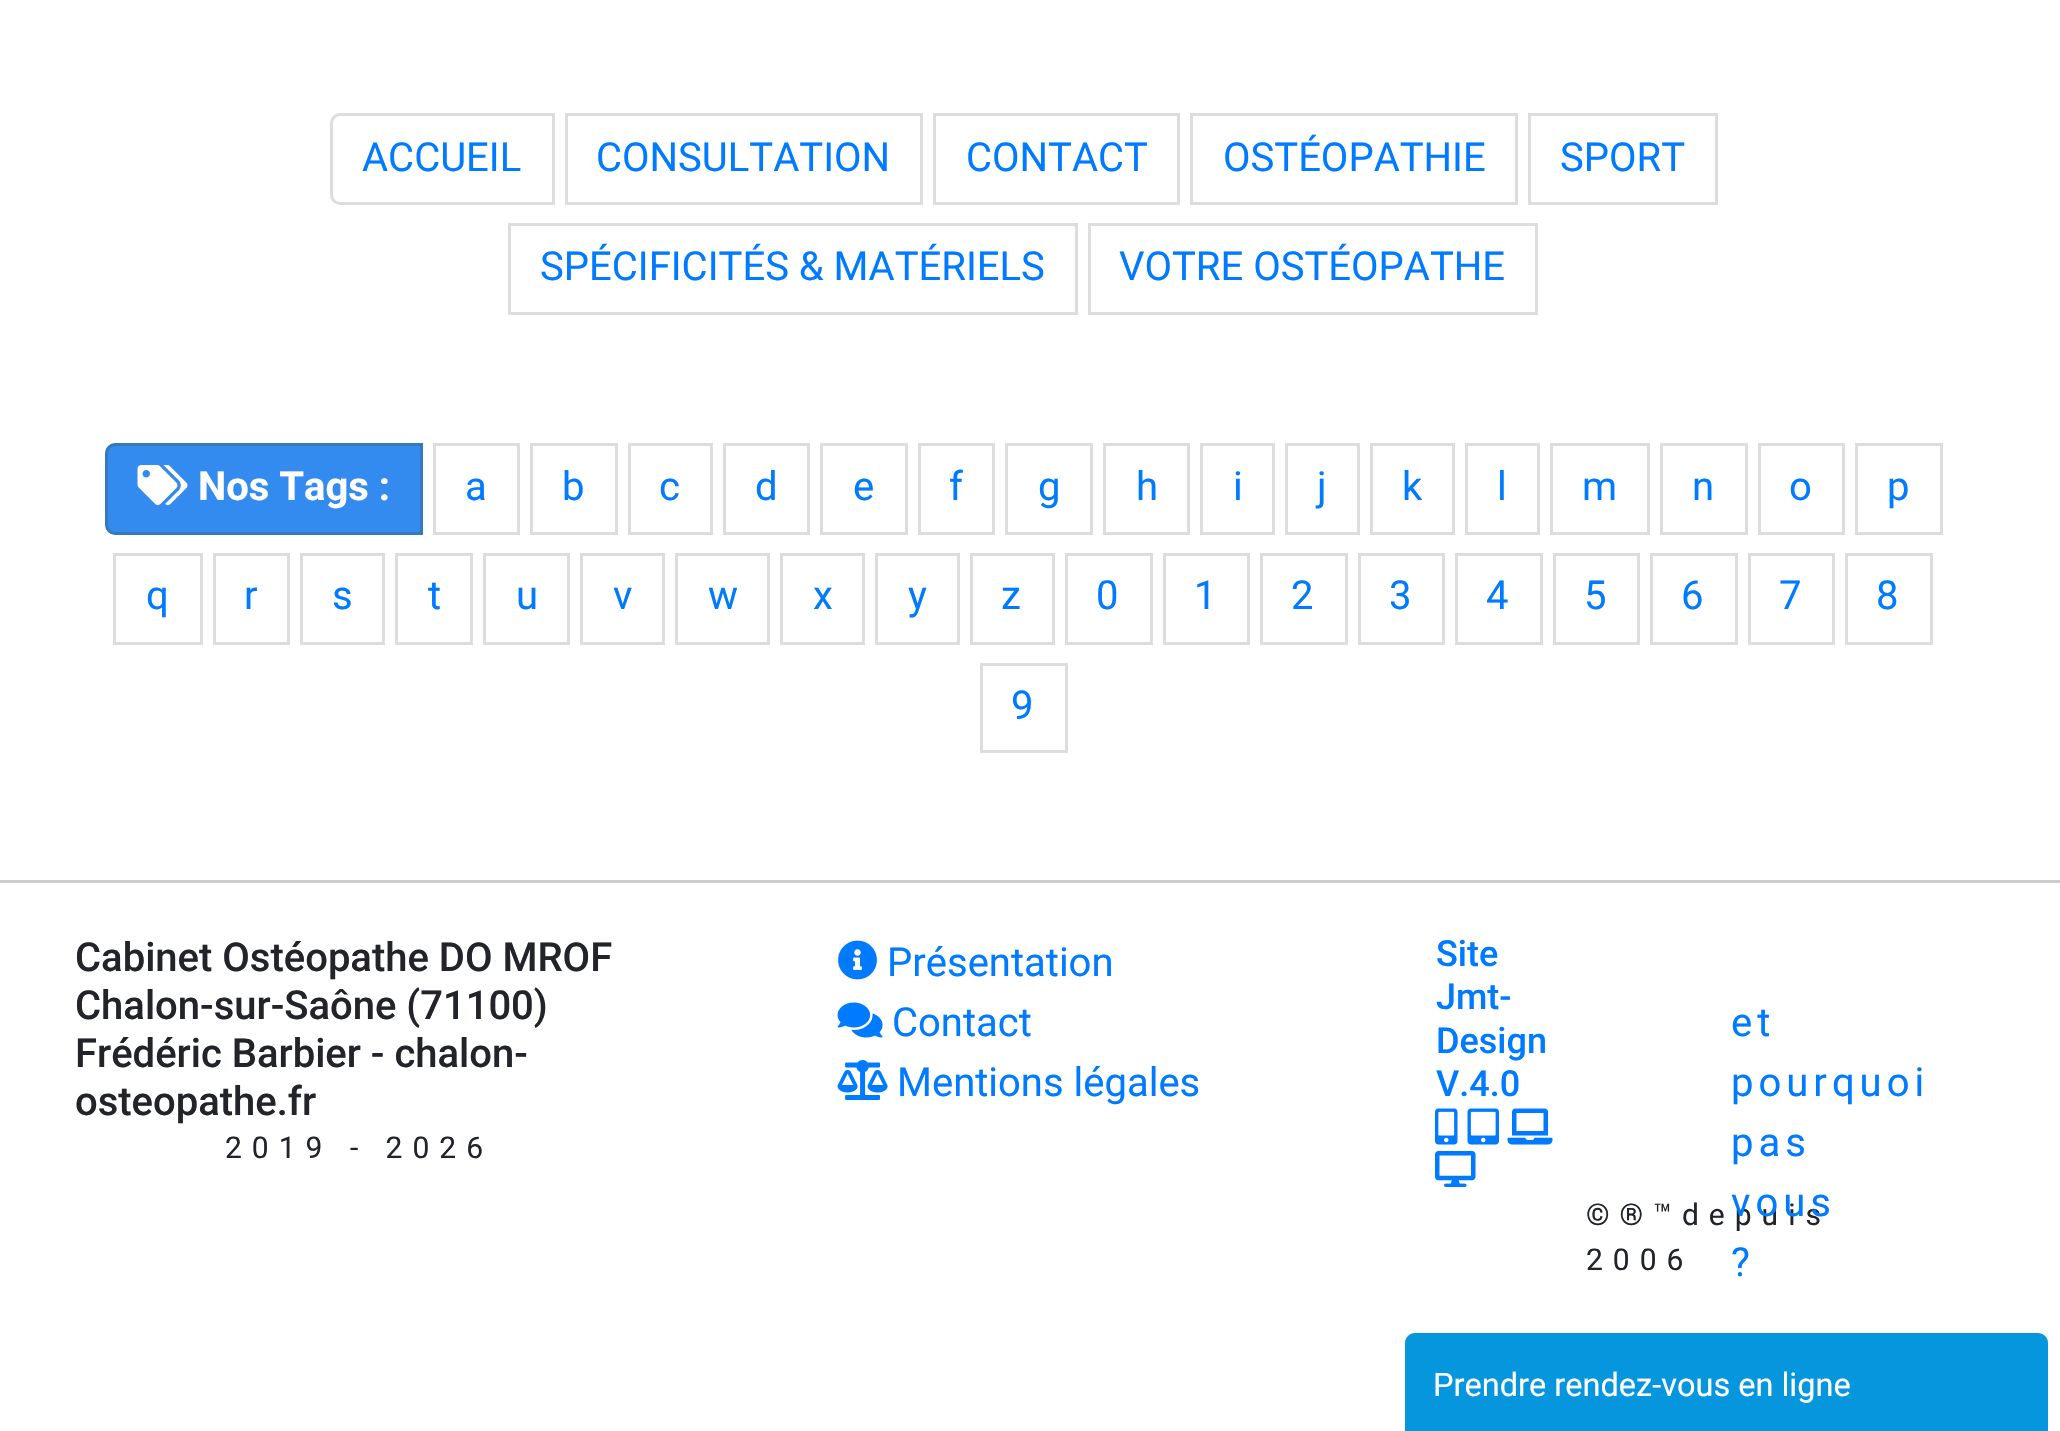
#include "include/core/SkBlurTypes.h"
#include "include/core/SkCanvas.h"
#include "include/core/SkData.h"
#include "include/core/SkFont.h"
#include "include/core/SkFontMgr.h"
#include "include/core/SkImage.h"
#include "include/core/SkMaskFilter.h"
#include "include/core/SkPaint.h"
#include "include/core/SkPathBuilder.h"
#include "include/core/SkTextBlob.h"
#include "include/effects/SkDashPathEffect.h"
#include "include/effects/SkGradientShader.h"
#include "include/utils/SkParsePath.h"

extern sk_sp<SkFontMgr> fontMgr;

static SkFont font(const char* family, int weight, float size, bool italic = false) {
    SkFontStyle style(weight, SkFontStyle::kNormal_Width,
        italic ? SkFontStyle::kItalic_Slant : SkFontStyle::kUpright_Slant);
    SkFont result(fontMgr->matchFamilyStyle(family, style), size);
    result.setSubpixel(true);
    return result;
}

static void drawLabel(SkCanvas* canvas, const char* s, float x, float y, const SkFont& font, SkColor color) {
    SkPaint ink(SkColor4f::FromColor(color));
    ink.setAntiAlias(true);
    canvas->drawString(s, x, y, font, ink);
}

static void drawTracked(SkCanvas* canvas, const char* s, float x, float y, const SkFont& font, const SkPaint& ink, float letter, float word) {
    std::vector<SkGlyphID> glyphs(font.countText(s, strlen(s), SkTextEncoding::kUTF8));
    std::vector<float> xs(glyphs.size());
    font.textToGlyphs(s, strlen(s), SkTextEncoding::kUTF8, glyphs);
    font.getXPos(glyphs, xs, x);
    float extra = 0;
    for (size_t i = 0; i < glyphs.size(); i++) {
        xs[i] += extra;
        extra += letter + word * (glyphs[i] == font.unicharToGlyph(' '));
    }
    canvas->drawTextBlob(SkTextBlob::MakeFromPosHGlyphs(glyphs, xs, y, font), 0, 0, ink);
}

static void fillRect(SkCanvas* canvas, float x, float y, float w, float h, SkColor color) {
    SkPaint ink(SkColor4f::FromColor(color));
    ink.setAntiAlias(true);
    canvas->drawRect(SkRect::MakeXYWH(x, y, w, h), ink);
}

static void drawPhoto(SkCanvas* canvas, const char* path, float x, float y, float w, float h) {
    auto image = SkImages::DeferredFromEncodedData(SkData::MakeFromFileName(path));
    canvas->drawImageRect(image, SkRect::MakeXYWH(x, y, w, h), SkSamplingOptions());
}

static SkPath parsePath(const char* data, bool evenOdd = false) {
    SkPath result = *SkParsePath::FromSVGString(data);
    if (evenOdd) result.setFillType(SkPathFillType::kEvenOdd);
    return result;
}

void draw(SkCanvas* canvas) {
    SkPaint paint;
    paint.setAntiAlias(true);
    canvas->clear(0xFFFFFFFF);
    paint.setStroke(true);
    paint.setStrokeWidth(3);
    paint.setColor(0xFFDDDDDD);
    canvas->drawPath(parsePath("M340 114.5H553.5V203.5H340C335.5 203.5 331.5 199.5 331.5 195V123C331.5 118.5 335.5 114.5 340 114.5Z"), paint);
    SkFont font1 = font("Roboto", 400, 40);
    drawLabel(canvas, "ACCUEIL", 362, 171, font1, 0xFF007BFF);
    canvas->drawRect(SkRect::MakeXYWH(566.5f, 114.5f, 355, 89), paint);
    drawLabel(canvas, "CONSULTATION", 596, 171, font1, 0xFF007BFF);
    canvas->drawRect(SkRect::MakeXYWH(934.5f, 114.5f, 244, 89), paint);
    drawLabel(canvas, "CONTACT", 966, 171, font1, 0xFF007BFF);
    canvas->drawRect(SkRect::MakeXYWH(1191.5f, 114.5f, 325, 89), paint);
    drawLabel(canvas, "OSTÉOPATHIE", 1223, 171, font1, 0xFF007BFF);
    canvas->drawRect(SkRect::MakeXYWH(1529.5f, 114.5f, 187, 89), paint);
    drawLabel(canvas, "SPORT", 1560, 171, font1, 0xFF007BFF);
    canvas->drawRect(SkRect::MakeXYWH(509.5f, 224.5f, 567, 89), paint);
    drawLabel(canvas, "SPÉCIFICITÉS & MATÉRIELS", 540, 280, font1, 0xFF007BFF);
    canvas->drawRect(SkRect::MakeXYWH(1089.5f, 224.5f, 447, 89), paint);
    drawLabel(canvas, "VOTRE OSTÉOPATHE", 1119, 280, font1, 0xFF007BFF);
    paint.setStroke(false);
    paint.setColor(0xFF338BEF);
    canvas->drawPath(parsePath("M115 444.5H421.5V533.5H115C110.5 533.5 106.5 529.5 106.5 525V453C106.5 448.5 110.5 444.5 115 444.5Z"), paint);
    paint.setStroke(true);
    paint.setColor(0xFF337AB7);
    canvas->drawPath(parsePath("M115 444.5H421.5V533.5H115C110.5 533.5 106.5 529.5 106.5 525V453C106.5 448.5 110.5 444.5 115 444.5Z"), paint);
    drawPhoto(canvas, "assets/img1.png", 137, 465, 51, 40);
    SkFont font2 = font("Roboto", 700, 40);
    drawLabel(canvas, "Nos Tags :", 198, 500, font2, 0xFFFFFFFF);
    paint.setColor(0xFFDDDDDD);
    canvas->drawRect(SkRect::MakeXYWH(434.5f, 444.5f, 84, 89), paint);
    drawLabel(canvas, "a", 465, 500, font1, 0xFF007BFF);
    canvas->drawRect(SkRect::MakeXYWH(531.5f, 444.5f, 85, 89), paint);
    drawLabel(canvas, "b", 562, 500, font1, 0xFF007BFF);
    canvas->drawRect(SkRect::MakeXYWH(629.5f, 444.5f, 82, 89), paint);
    drawLabel(canvas, "c", 659, 500, font1, 0xFF007BFF);
    canvas->drawRect(SkRect::MakeXYWH(724.5f, 444.5f, 84, 89), paint);
    drawLabel(canvas, "d", 755, 500, font1, 0xFF007BFF);
    canvas->drawRect(SkRect::MakeXYWH(821.5f, 444.5f, 85, 89), paint);
    drawLabel(canvas, "e", 853, 500, font1, 0xFF007BFF);
    canvas->drawRect(SkRect::MakeXYWH(919.5f, 444.5f, 74, 89), paint);
    drawLabel(canvas, "f", 949, 500, font1, 0xFF007BFF);
    canvas->drawRect(SkRect::MakeXYWH(1006.5f, 444.5f, 85, 89), paint);
    drawLabel(canvas, "g", 1038, 500, font1, 0xFF007BFF);
    canvas->drawRect(SkRect::MakeXYWH(1104.5f, 444.5f, 84, 89), paint);
    drawLabel(canvas, "h", 1136, 500, font1, 0xFF007BFF);
    canvas->drawRect(SkRect::MakeXYWH(1201.5f, 444.5f, 72, 89), paint);
    drawLabel(canvas, "i", 1233, 500, font1, 0xFF007BFF);
    canvas->drawRect(SkRect::MakeXYWH(1286.5f, 444.5f, 72, 89), paint);
    drawLabel(canvas, "j", 1317, 500, font1, 0xFF007BFF);
    canvas->drawRect(SkRect::MakeXYWH(1371.5f, 444.5f, 82, 89), paint);
    drawLabel(canvas, "k", 1402, 500, font1, 0xFF007BFF);
    canvas->drawRect(SkRect::MakeXYWH(1466.5f, 444.5f, 72, 89), paint);
    drawLabel(canvas, "l", 1497, 500, font1, 0xFF007BFF);
    canvas->drawRect(SkRect::MakeXYWH(1551.5f, 444.5f, 97, 89), paint);
    drawLabel(canvas, "m", 1582, 500, font1, 0xFF007BFF);
    canvas->drawRect(SkRect::MakeXYWH(1661.5f, 444.5f, 85, 89), paint);
    drawLabel(canvas, "n", 1692, 500, font1, 0xFF007BFF);
    canvas->drawRect(SkRect::MakeXYWH(1759.5f, 444.5f, 84, 89), paint);
    drawLabel(canvas, "o", 1789, 500, font1, 0xFF007BFF);
    canvas->drawRect(SkRect::MakeXYWH(1856.5f, 444.5f, 85, 89), paint);
    drawLabel(canvas, "p", 1887, 500, font1, 0xFF007BFF);
    canvas->drawRect(SkRect::MakeXYWH(114.5f, 554.5f, 87, 89), paint);
    drawLabel(canvas, "q", 146, 609, font1, 0xFF007BFF);
    canvas->drawRect(SkRect::MakeXYWH(214.5f, 554.5f, 74, 89), paint);
    drawLabel(canvas, "r", 244, 609, font1, 0xFF007BFF);
    canvas->drawRect(SkRect::MakeXYWH(301.5f, 554.5f, 82, 89), paint);
    drawLabel(canvas, "s", 332, 609, font1, 0xFF007BFF);
    canvas->drawRect(SkRect::MakeXYWH(396.5f, 554.5f, 75, 89), paint);
    drawLabel(canvas, "t", 428, 609, font1, 0xFF007BFF);
    canvas->drawRect(SkRect::MakeXYWH(484.5f, 554.5f, 84, 89), paint);
    drawLabel(canvas, "u", 516, 609, font1, 0xFF007BFF);
    canvas->drawRect(SkRect::MakeXYWH(581.5f, 554.5f, 82, 89), paint);
    drawLabel(canvas, "v", 613, 609, font1, 0xFF007BFF);
    canvas->drawRect(SkRect::MakeXYWH(676.5f, 554.5f, 92, 89), paint);
    drawLabel(canvas, "w", 708, 609, font1, 0xFF007BFF);
    canvas->drawRect(SkRect::MakeXYWH(781.5f, 554.5f, 82, 89), paint);
    drawLabel(canvas, "x", 813, 609, font1, 0xFF007BFF);
    canvas->drawRect(SkRect::MakeXYWH(876.5f, 554.5f, 82, 89), paint);
    drawLabel(canvas, "y", 908, 609, font1, 0xFF007BFF);
    canvas->drawRect(SkRect::MakeXYWH(971.5f, 554.5f, 82, 89), paint);
    drawLabel(canvas, "z", 1001, 609, font1, 0xFF007BFF);
    canvas->drawRect(SkRect::MakeXYWH(1066.5f, 554.5f, 85, 89), paint);
    drawLabel(canvas, "0", 1096, 609, font1, 0xFF007BFF);
    canvas->drawRect(SkRect::MakeXYWH(1164.5f, 554.5f, 84, 89), paint);
    drawLabel(canvas, "1", 1194, 609, font1, 0xFF007BFF);
    canvas->drawRect(SkRect::MakeXYWH(1261.5f, 554.5f, 85, 89), paint);
    drawLabel(canvas, "2", 1291, 609, font1, 0xFF007BFF);
    canvas->drawRect(SkRect::MakeXYWH(1359.5f, 554.5f, 84, 89), paint);
    drawLabel(canvas, "3", 1389, 609, font1, 0xFF007BFF);
    canvas->drawRect(SkRect::MakeXYWH(1456.5f, 554.5f, 85, 89), paint);
    drawLabel(canvas, "4", 1486, 609, font1, 0xFF007BFF);
    canvas->drawRect(SkRect::MakeXYWH(1554.5f, 554.5f, 84, 89), paint);
    drawLabel(canvas, "5", 1584, 609, font1, 0xFF007BFF);
    canvas->drawRect(SkRect::MakeXYWH(1651.5f, 554.5f, 85, 89), paint);
    drawLabel(canvas, "6", 1681, 609, font1, 0xFF007BFF);
    canvas->drawRect(SkRect::MakeXYWH(1749.5f, 554.5f, 84, 89), paint);
    drawLabel(canvas, "7", 1779, 609, font1, 0xFF007BFF);
    canvas->drawRect(SkRect::MakeXYWH(1846.5f, 554.5f, 85, 89), paint);
    drawLabel(canvas, "8", 1876, 609, font1, 0xFF007BFF);
    canvas->drawRect(SkRect::MakeXYWH(981.5f, 664.5f, 85, 87), paint);
    drawLabel(canvas, "9", 1011, 719, font1, 0xFF007BFF);
    fillRect(canvas, 0, 880, 2060, 3, 0xFFCCCCCC);
    SkFont font3 = font("Roboto", 500, 40);
    drawLabel(canvas, "Cabinet Ostéopathe DO MROF", 75, 971, font3, 0xFF212529);
    drawLabel(canvas, "Chalon-sur-Saône (71100)", 75, 1019, font3, 0xFF212529);
    drawLabel(canvas, "Frédéric Barbier - chalon-", 75, 1067, font3, 0xFF212529);
    drawLabel(canvas, "osteopathe.fr", 75, 1115, font3, 0xFF212529);
    SkFont font4 = font("Roboto", 400, 30);
    paint.setStroke(false);
    paint.setColor(0xFF212529);
    drawTracked(canvas, "2019 - 2026", 225, 1158, font4, paint, 10, 0);
    drawPhoto(canvas, "assets/img2.png", 838, 940, 39, 40);
    drawLabel(canvas, "Présentation", 887, 976, font1, 0xFF007BFF);
    drawPhoto(canvas, "assets/img3.png", 837, 1002, 46, 36);
    drawLabel(canvas, "Contact", 892, 1036, font1, 0xFF007BFF);
    drawPhoto(canvas, "assets/img4.png", 837, 1060, 51, 40);
    drawLabel(canvas, "Mentions légales", 897, 1096, font1, 0xFF007BFF);
    SkFont font5 = font("Roboto", 500, 36);
    drawLabel(canvas, "Site", 1436, 966, font5, 0xFF007BFF);
    drawLabel(canvas, "Jmt-", 1436, 1009, font5, 0xFF007BFF);
    drawLabel(canvas, "Design", 1436, 1053, font5, 0xFF007BFF);
    drawLabel(canvas, "V.4.0", 1436, 1096, font5, 0xFF007BFF);
    drawPhoto(canvas, "assets/img5.png", 1435, 1108, 23, 37);
    drawPhoto(canvas, "assets/img6.png", 1467, 1108, 32, 37);
    drawPhoto(canvas, "assets/img7.png", 1507, 1108, 46, 37);
    drawPhoto(canvas, "assets/img8.png", 1435, 1151, 41, 36);
    drawTracked(canvas, "©®™depuis", 1586, 1225, font4, paint, 10, 0);
    drawTracked(canvas, "2006", 1586, 1270, font4, paint, 10, 0);
    paint.setColor(0xFF007BFF);
    drawTracked(canvas, "et", 1731, 1036, font1, paint, 5, 0);
    drawTracked(canvas, "pourquoi", 1731, 1096, font1, paint, 5, 0);
    drawTracked(canvas, "pas", 1731, 1156, font1, paint, 5, 0);
    drawTracked(canvas, "vous", 1731, 1216, font1, paint, 5, 0);
    drawTracked(canvas, "?", 1731, 1276, font1, paint, 5, 0);
    paint.setColor(0xFF0596DE);
    canvas->drawPath(parsePath("M1415 1333H2038C2043.5 1333 2048 1337.5 2048 1343V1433H1405V1343C1405 1337.5 1409.5 1333 1415 1333Z"), paint);
    SkFont font6 = font("Roboto", 400, 32.5f);
    drawLabel(canvas, "Prendre rendez-vous en ligne", 1433, 1396, font6, 0xFFFFFFFF);
}
